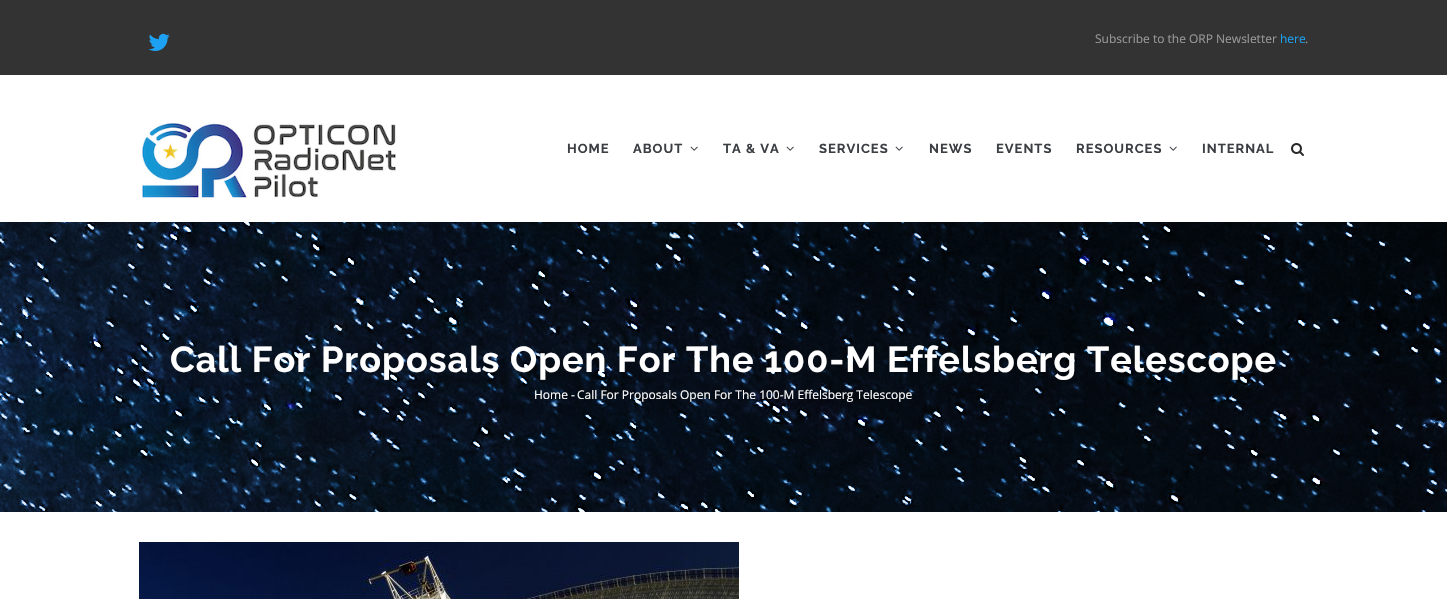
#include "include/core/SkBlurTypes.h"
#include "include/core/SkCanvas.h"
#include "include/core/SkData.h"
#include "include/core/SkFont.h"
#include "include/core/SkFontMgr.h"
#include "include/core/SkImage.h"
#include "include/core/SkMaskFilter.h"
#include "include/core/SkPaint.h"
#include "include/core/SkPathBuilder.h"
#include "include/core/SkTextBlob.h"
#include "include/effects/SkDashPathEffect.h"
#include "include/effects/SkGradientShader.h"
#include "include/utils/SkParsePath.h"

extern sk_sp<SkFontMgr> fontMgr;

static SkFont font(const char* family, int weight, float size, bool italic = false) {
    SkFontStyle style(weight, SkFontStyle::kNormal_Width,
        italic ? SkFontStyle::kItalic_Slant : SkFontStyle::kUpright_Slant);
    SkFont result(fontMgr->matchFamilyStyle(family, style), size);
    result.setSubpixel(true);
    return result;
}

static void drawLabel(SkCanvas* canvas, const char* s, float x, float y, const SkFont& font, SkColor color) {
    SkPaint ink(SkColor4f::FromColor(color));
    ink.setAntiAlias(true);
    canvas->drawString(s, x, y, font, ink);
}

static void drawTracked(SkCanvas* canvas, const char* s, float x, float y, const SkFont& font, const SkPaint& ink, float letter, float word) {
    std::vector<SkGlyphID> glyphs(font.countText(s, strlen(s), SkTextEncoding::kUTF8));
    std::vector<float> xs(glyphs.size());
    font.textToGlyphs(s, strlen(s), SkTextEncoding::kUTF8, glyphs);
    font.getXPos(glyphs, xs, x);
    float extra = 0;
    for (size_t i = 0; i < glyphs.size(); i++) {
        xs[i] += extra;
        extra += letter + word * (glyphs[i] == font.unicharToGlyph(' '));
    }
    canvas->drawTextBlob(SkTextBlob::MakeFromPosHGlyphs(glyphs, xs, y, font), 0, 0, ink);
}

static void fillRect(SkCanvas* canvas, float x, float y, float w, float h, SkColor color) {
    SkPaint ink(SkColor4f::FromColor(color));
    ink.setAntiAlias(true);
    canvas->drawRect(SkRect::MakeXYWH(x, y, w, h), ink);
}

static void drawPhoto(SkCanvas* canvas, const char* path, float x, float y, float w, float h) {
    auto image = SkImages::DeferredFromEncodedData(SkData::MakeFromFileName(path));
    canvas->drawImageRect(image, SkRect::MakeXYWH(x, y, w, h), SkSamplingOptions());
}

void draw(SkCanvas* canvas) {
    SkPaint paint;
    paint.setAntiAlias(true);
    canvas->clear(0xFFFFFFFF);
    fillRect(canvas, 0, 0, 1447, 75, 0xFF333333);
    drawPhoto(canvas, "assets/img1.png", 148, 33, 22, 18);
    SkFont font1 = font("Open Sans", 400, 12);
    drawLabel(canvas, "Subscribe to the ORP Newsletter", 1095, 43, font1, 0xFF999999);
    drawLabel(canvas, "here", 1280, 43, font1, 0xFF1DA1F2);
    drawLabel(canvas, ".", 1305, 43, font1, 0xFF999999);
    drawPhoto(canvas, "assets/img2.png", 142, 122, 254, 76);
    SkFont font2 = font("Raleway", 700, 13);
    paint.setColor(0xFF3B3E43);
    drawTracked(canvas, "HOME", 567, 153, font2, paint, 1, 0);
    drawTracked(canvas, "ABOUT", 633, 153, font2, paint, 1, 0);
    drawPhoto(canvas, "assets/img3.png", 690, 146, 8, 5);
    drawTracked(canvas, "TA & VA", 723, 153, font2, paint, 1, 0);
    drawPhoto(canvas, "assets/img3.png", 786, 146, 8, 5);
    drawTracked(canvas, "SERVICES", 819, 153, font2, paint, 1, 0);
    drawPhoto(canvas, "assets/img3.png", 895, 146, 8, 5);
    drawTracked(canvas, "NEWS", 929, 153, font2, paint, 1, 0);
    drawTracked(canvas, "EVENTS", 996, 153, font2, paint, 1, 0);
    drawTracked(canvas, "RESOURCES", 1076, 153, font2, paint, 1, 0);
    drawPhoto(canvas, "assets/img3.png", 1169, 146, 8, 5);
    drawTracked(canvas, "INTERNAL", 1202, 153, font2, paint, 1, 0);
    drawPhoto(canvas, "assets/img4.png", 1291, 143, 13, 13);
    drawPhoto(canvas, "assets/img5.png", 0, 222, 1447, 290);
    SkFont font3 = font("Raleway", 700, 36);
    paint.setColor(0xFFFFFFFF);
    drawTracked(canvas, "Call For Proposals Open For The 100-M Effelsberg Telescope", 170, 372, font3, paint, 1, 0);
    drawLabel(canvas, "Home -", 534, 399, font1, 0xFFFFFFFF);
    drawLabel(canvas, "Call For Proposals Open For The 100-M Effelsberg Telescope", 577, 399, font1, 0xFFFFFFFF);
    drawPhoto(canvas, "assets/img6.png", 139, 542, 600, 57);
}
